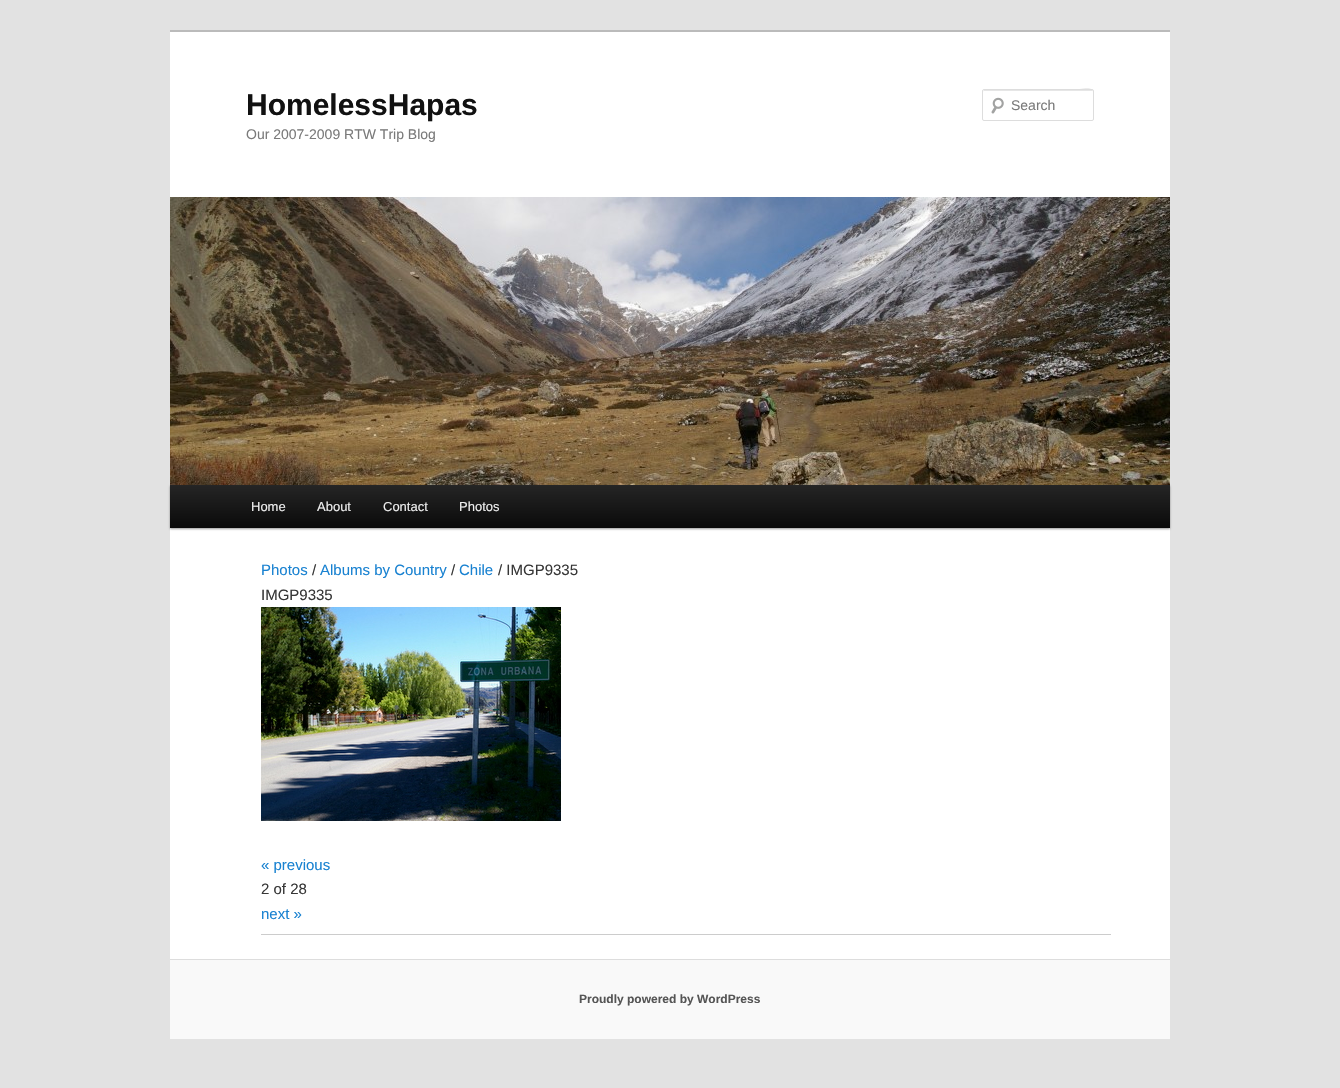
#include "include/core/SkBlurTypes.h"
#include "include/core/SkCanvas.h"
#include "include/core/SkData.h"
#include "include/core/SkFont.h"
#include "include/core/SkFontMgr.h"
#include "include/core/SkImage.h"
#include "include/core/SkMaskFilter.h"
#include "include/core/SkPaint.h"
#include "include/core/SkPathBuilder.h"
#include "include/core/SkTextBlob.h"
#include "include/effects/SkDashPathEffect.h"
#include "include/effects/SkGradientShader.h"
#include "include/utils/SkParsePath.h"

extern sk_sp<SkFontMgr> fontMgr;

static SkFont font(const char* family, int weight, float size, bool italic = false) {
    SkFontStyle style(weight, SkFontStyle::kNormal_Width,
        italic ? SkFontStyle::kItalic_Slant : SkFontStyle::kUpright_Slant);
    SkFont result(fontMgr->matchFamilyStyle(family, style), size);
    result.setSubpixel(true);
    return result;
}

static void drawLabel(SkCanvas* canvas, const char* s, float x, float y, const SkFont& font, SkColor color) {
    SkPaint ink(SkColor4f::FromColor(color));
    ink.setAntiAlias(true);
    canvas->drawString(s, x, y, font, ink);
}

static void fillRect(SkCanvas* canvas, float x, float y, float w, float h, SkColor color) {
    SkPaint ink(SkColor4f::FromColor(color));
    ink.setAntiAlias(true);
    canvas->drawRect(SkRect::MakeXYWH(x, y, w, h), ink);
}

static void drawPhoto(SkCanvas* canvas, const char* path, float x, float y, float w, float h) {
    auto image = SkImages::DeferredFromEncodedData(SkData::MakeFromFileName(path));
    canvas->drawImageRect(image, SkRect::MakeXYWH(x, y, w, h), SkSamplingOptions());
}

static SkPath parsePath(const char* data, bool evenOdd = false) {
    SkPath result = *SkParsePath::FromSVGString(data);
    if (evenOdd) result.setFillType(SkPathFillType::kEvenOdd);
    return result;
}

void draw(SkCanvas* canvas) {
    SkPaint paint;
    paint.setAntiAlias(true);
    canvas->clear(0xFFE2E2E2);
    fillRect(canvas, 170, 32, 1000, 927, 0xFFFFFFFF);
    fillRect(canvas, 170, 30, 1000, 2, 0xFFBBBBBB);
    SkFont font1 = font("Liberation Sans", 700, 30);
    drawLabel(canvas, "HomelessHapas", 246, 115, font1, 0xFF111111);
    SkFont font2 = font("Liberation Sans", 400, 14);
    drawLabel(canvas, "Our 2007-2009 RTW Trip Blog", 246, 139, font2, 0xFF7A7A7A);
    drawPhoto(canvas, "assets/img1.png", 991, 97, 13, 17);
    paint.setColor(0xFFE6E6E6);
    canvas->drawPath(parsePath("M984 91H1093V92C1093 85 1078 90 1074 90H984L983 92C983 91 983 91 984 91Z"), paint);
    paint.setStroke(true);
    paint.setStrokeWidth(1);
    paint.setColor(0xFFDDDDDD);
    canvas->drawRoundRect(SkRect::MakeXYWH(982.5f, 89.5f, 111, 31), 1.5f, 1.5f, paint);
    drawLabel(canvas, "Search", 1011, 110, font2, 0xFF7A7A7A);
    paint.setStroke(false);
    paint.setColor(0x66000000);
    paint.setMaskFilter(SkMaskFilter::MakeBlur(kNormal_SkBlurStyle, 1));
    canvas->drawRect(SkRect::MakeXYWH(170, 486, 1000, 43), paint);
    paint.setMaskFilter(nullptr);
    drawPhoto(canvas, "assets/img2.png", 170, 197, 1000, 288);
    {
        const SkColor colors[] = {0xFF252525, 0xFF0A0A0A};
        const float stops[] = {0, 1};
        const SkPoint ends[] = {{670, 485}, {670, 528}};
        paint.setShader(SkGradientShader::MakeLinear(ends, colors, stops, 2, SkTileMode::kClamp));
        paint.setAlpha(255);
    }
    canvas->drawRect(SkRect::MakeXYWH(170, 485, 1000, 43), paint);
    SkFont font3 = font("Liberation Sans", 400, 13);
    drawLabel(canvas, "Home", 251, 511, font3, 0xFFEEEEEE);
    drawLabel(canvas, "About", 317, 511, font3, 0xFFEEEEEE);
    drawLabel(canvas, "Contact", 383, 511, font3, 0xFFEEEEEE);
    drawLabel(canvas, "Photos", 459, 511, font3, 0xFFEEEEEE);
    SkFont font4 = font("Liberation Sans", 400, 15);
    drawLabel(canvas, "Photos", 261, 575, font4, 0xFF1982D1);
    drawLabel(canvas, "/", 312, 575, font4, 0xFF373737);
    drawLabel(canvas, "Albums by Country", 320, 575, font4, 0xFF1982D1);
    drawLabel(canvas, "/", 451, 575, font4, 0xFF373737);
    drawLabel(canvas, "Chile", 459, 575, font4, 0xFF1982D1);
    drawLabel(canvas, "/ IMGP9335", 498, 575, font4, 0xFF373737);
    drawLabel(canvas, "IMGP9335", 261, 600, font4, 0xFF373737);
    drawPhoto(canvas, "assets/img3.png", 261, 607, 300, 214);
    drawLabel(canvas, "« previous", 261, 870, font4, 0xFF1982D1);
    drawLabel(canvas, "2 of 28", 261, 894, font4, 0xFF373737);
    drawLabel(canvas, "next »", 261, 919, font4, 0xFF1982D1);
    fillRect(canvas, 261, 934, 850, 1, 0xFFCCCCCC);
    fillRect(canvas, 170, 960, 1000, 79, 0xFFF9F9F9);
    fillRect(canvas, 170, 959, 1000, 1, 0xFFDDDDDD);
    SkFont font5 = font("Liberation Sans", 700, 12);
    drawLabel(canvas, "Proudly powered by WordPress", 579, 1003, font5, 0xFF555555);
}
